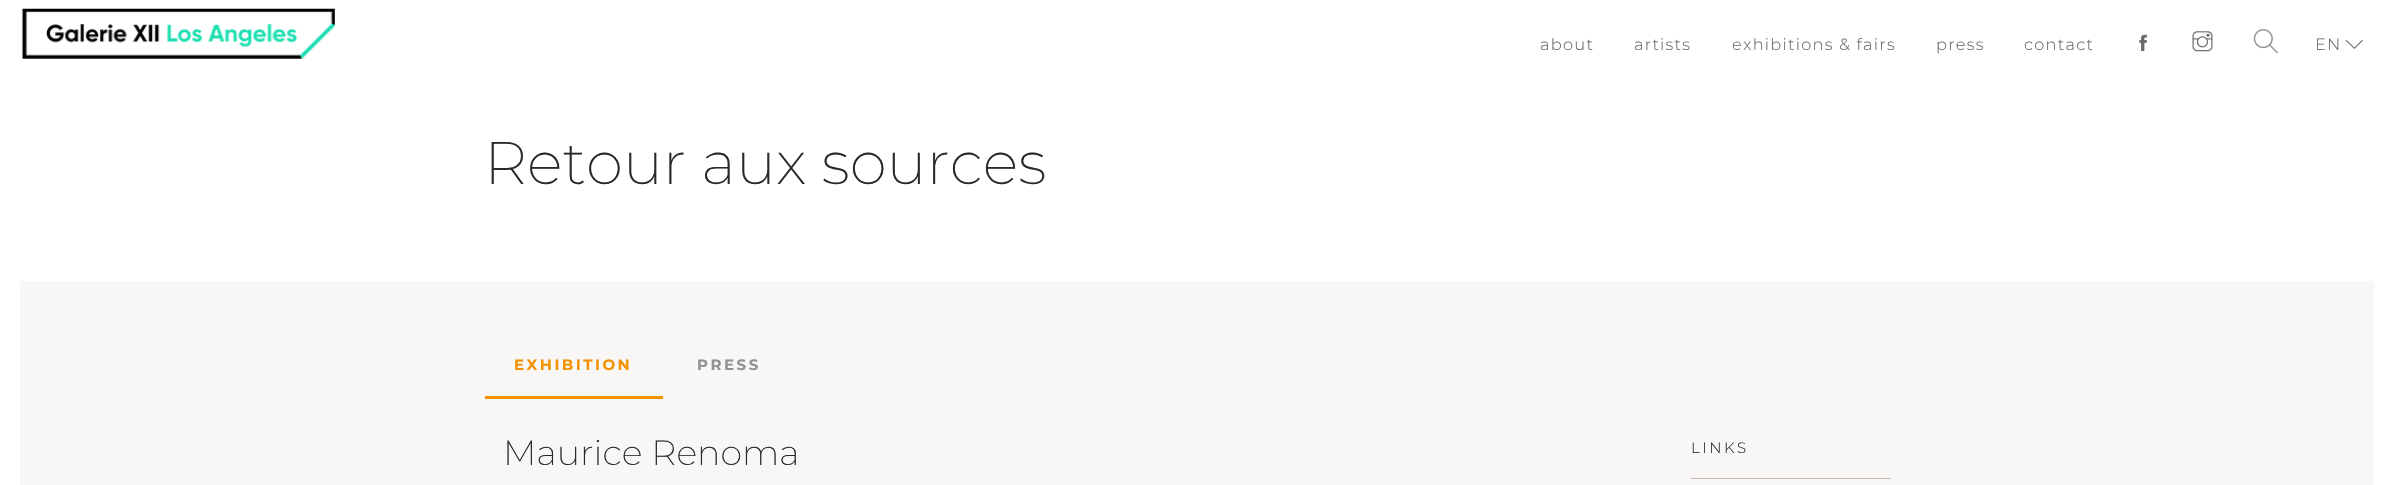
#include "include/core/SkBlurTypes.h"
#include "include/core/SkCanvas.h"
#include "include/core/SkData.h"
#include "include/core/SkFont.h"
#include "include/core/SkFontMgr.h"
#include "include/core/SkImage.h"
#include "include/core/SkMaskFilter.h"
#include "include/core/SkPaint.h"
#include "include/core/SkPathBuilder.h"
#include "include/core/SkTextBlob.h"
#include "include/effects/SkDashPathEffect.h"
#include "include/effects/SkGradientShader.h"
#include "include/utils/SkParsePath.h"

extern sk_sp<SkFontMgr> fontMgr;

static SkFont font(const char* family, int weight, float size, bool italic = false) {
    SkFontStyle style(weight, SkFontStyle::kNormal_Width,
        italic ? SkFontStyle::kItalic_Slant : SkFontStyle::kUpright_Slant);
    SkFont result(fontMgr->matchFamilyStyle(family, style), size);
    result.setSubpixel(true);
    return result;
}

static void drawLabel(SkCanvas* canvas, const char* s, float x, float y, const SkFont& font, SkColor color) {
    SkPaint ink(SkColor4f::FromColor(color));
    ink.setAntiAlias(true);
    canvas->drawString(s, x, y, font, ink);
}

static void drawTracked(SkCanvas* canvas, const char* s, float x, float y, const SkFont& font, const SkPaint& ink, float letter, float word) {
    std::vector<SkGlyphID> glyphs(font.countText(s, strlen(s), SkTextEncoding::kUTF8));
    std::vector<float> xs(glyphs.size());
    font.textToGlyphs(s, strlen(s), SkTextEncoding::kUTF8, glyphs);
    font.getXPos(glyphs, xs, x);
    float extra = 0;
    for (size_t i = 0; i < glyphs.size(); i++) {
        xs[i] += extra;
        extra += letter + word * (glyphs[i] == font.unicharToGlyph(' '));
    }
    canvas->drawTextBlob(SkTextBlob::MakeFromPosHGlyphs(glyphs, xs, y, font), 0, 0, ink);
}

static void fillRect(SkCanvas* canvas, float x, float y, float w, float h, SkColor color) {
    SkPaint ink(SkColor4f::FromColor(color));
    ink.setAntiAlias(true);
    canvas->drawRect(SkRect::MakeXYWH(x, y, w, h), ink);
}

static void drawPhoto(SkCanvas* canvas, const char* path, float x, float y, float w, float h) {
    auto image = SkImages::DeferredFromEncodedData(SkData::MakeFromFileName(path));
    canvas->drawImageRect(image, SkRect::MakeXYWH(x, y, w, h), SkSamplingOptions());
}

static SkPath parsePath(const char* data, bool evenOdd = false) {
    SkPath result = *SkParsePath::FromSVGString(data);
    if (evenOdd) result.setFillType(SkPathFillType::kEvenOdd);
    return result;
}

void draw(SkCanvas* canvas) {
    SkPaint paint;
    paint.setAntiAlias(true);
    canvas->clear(0xFFFFFFFF);
    drawPhoto(canvas, "assets/img1.png", 22, 8, 313, 51);
    SkFont font1 = font("Montserrat", 300, 16.25f);
    paint.setColor(0xFF696969);
    drawTracked(canvas, "about", 1540, 50, font1, paint, 1.25f, 0);
    drawTracked(canvas, "artists", 1634, 50, font1, paint, 1.25f, 0);
    drawTracked(canvas, "exhibitions & fairs", 1732, 50, font1, paint, 1.25f, 0);
    drawTracked(canvas, "press", 1936, 50, font1, paint, 1.25f, 0);
    drawTracked(canvas, "contact", 2024, 50, font1, paint, 1.25f, 0);
    drawPhoto(canvas, "assets/img2.png", 2139, 34, 8, 17);
    drawPhoto(canvas, "assets/img3.png", 2192, 31, 21, 21);
    drawPhoto(canvas, "assets/img4.png", 2253, 29, 25, 25);
    drawTracked(canvas, "EN", 2315, 50, font1, paint, 1.25f, 0);
    paint.setColor(0xFF666666);
    canvas->drawPath(parsePath("M2363 40.5L2354.5 49L2345.5 40.5L2346.5 40L2354.5 47.5L2362 40Z"), paint);
    SkFont font2 = font("Montserrat", 200, 60);
    drawLabel(canvas, "Retour aux sources", 484, 184, font2, 0xFF292929);
    fillRect(canvas, 20, 281, 2354, 204, 0xFFF9F7F5);
    SkFont font3 = font("Montserrat", 700, 15);
    paint.setColor(0xFFF39200);
    drawTracked(canvas, "EXHIBITION", 514, 370, font3, paint, 2.5f, 0);
    fillRect(canvas, 485, 396, 178, 3, 0xFFF39200);
    paint.setColor(0xFF929291);
    drawTracked(canvas, "PRESS", 697, 370, font3, paint, 2.5f, 0);
    SkFont font4 = font("Montserrat", 200, 35);
    drawLabel(canvas, "Maurice Renoma", 503, 465, font4, 0xFF292929);
    SkFont font5 = font("Montserrat", 300, 15);
    paint.setColor(0xFF292929);
    drawTracked(canvas, "LINKS", 1691, 453, font5, paint, 2.5f, 0);
    fillRect(canvas, 1691, 478, 200, 1, 0xFFC6BBB8);
}
